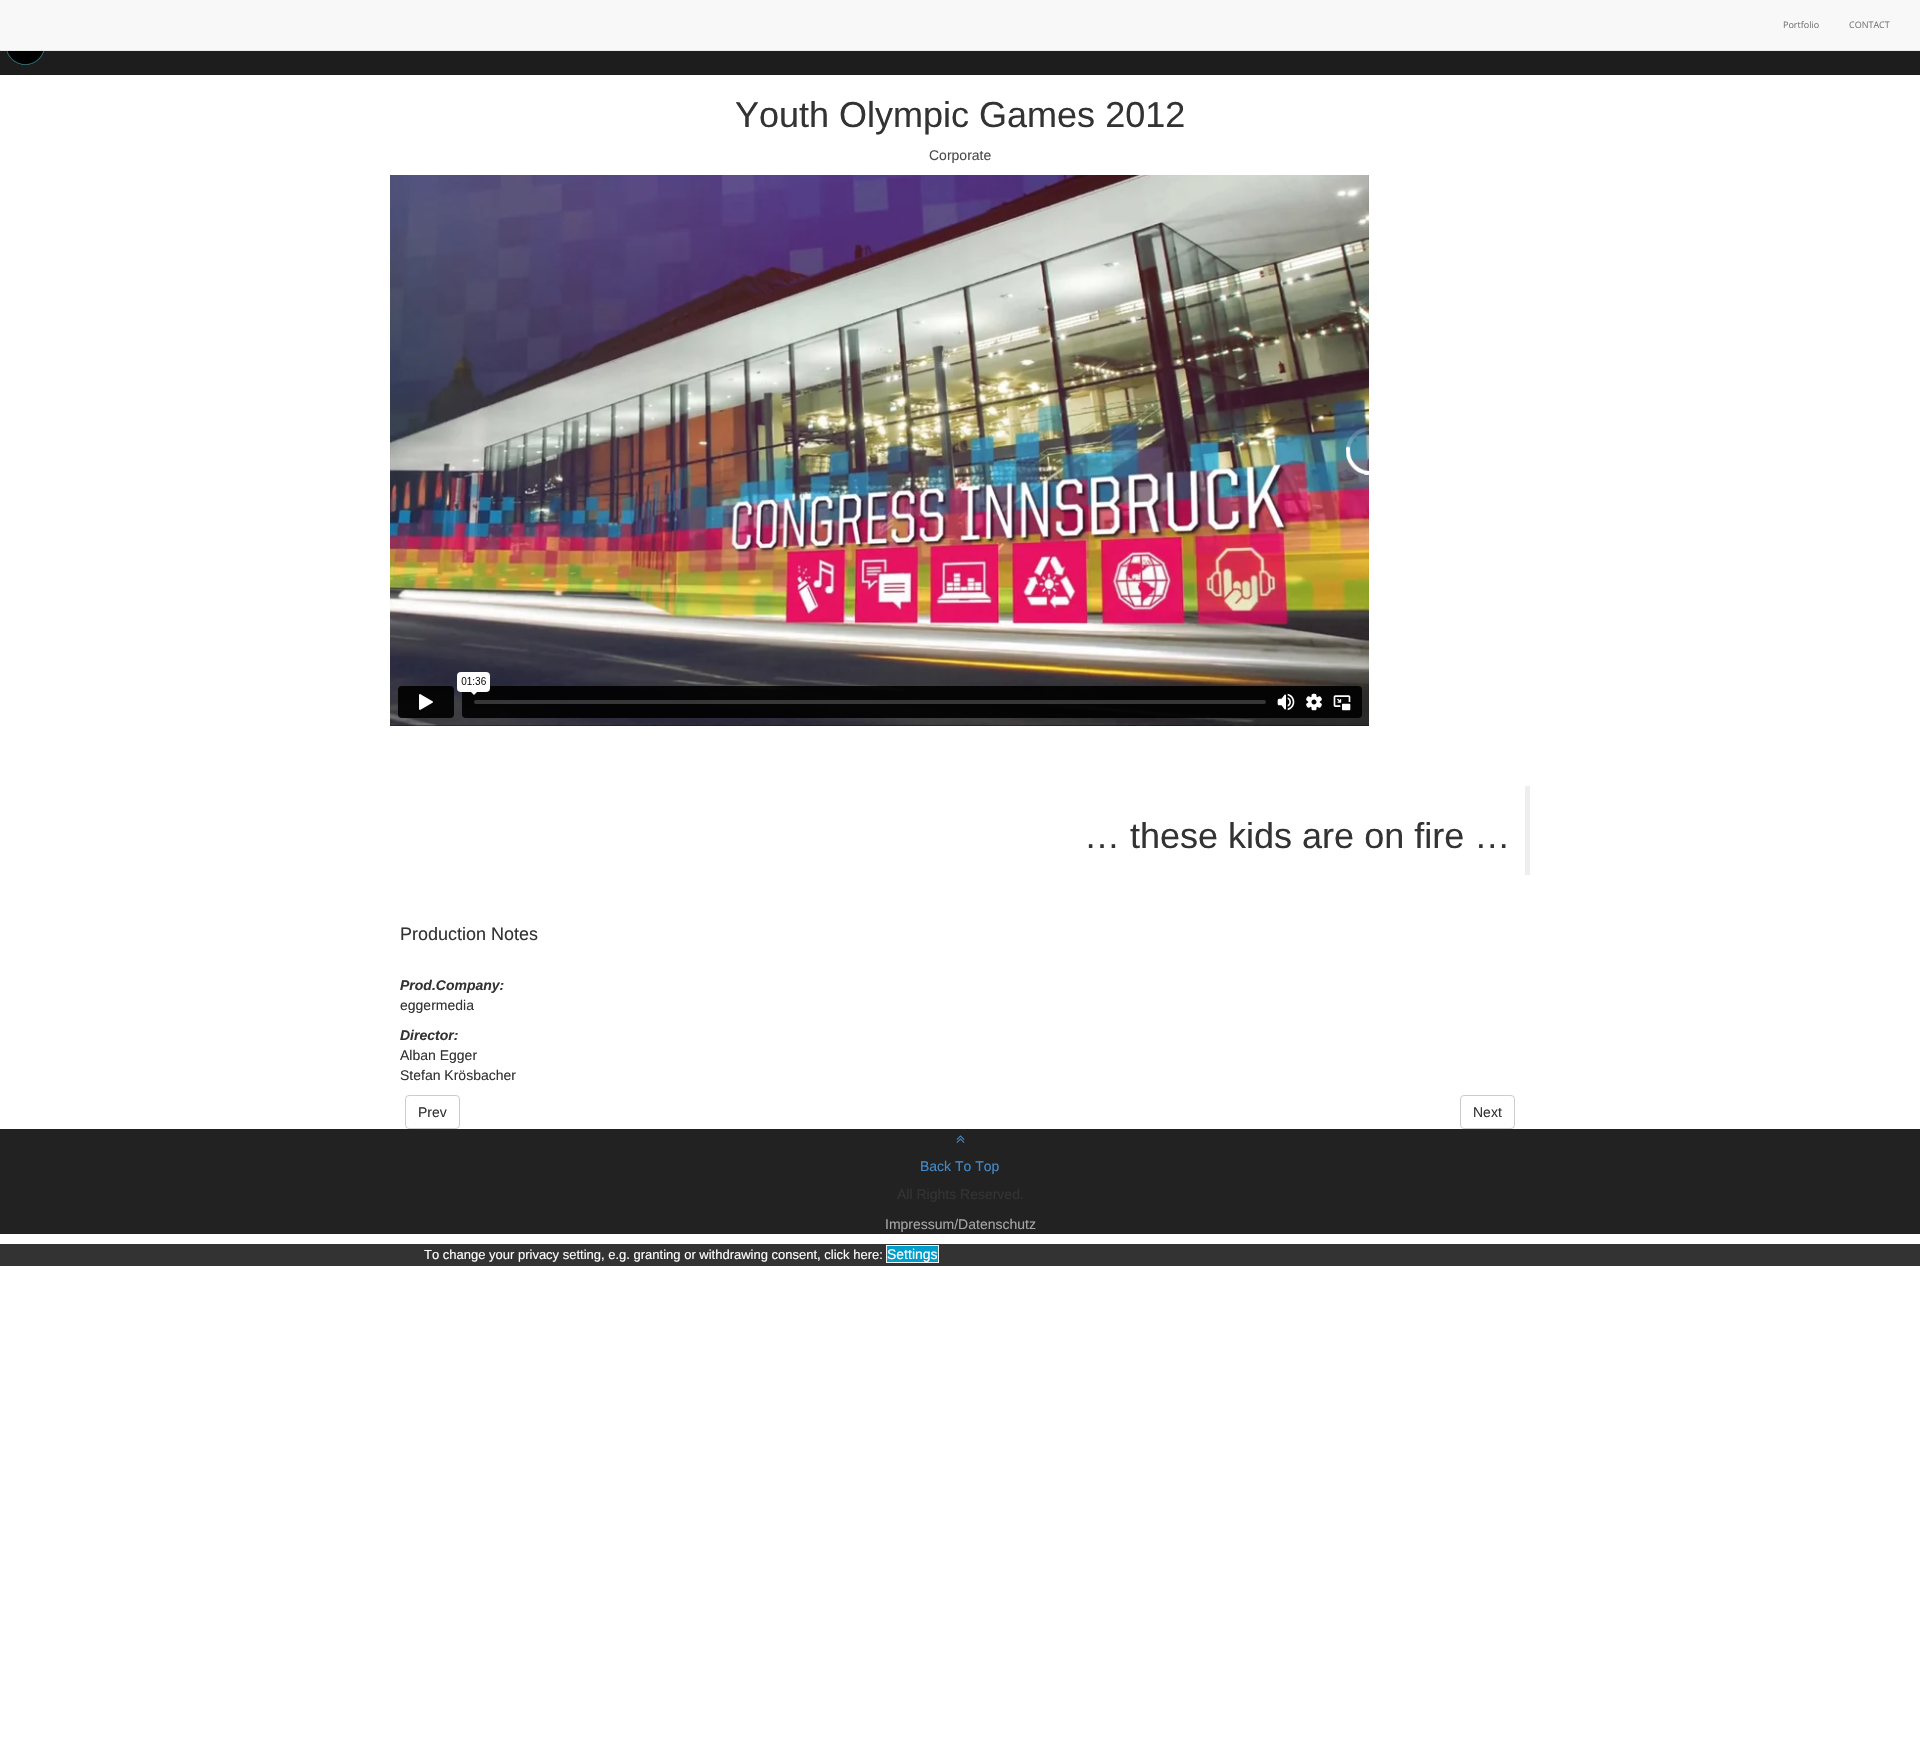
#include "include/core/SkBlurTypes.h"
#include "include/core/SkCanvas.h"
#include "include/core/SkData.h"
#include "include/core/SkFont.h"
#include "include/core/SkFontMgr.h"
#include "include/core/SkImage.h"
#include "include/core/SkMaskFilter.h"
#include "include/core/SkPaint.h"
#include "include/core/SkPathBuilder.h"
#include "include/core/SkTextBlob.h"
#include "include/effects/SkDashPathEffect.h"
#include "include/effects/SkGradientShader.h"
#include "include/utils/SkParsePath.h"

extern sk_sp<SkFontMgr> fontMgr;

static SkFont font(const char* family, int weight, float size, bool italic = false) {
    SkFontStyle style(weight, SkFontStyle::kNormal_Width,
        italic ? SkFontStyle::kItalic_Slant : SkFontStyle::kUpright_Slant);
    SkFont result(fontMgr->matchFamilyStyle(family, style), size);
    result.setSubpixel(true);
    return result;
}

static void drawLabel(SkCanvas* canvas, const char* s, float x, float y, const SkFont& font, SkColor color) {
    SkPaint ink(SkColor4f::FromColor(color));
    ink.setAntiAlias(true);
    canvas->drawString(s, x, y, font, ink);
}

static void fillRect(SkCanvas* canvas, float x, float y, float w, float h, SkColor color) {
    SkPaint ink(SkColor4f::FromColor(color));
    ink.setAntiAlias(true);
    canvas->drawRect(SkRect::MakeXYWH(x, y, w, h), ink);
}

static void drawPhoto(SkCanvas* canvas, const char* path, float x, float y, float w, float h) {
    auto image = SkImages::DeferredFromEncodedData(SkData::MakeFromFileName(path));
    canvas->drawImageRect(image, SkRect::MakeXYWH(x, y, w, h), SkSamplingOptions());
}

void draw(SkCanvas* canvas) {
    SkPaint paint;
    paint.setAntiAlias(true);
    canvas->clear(0xFFFFFFFF);
    fillRect(canvas, 0, 0, 1920, 50, 0xFFF8F8F8);
    fillRect(canvas, 0, 50, 1920, 1, 0xFFE7E7E7);
    SkFont font1 = font("Open Sans", 400, 9);
    drawLabel(canvas, "Portfolio", 1783, 28, font1, 0xFF777777);
    drawLabel(canvas, "CONTACT", 1849, 28, font1, 0xFF777777);
    fillRect(canvas, 0, 51, 1920, 24, 0xFF1D1D1D);
    drawPhoto(canvas, "assets/img1.png", 6, 51, 38, 14);
    SkFont font2 = font("Liberation Sans", 400, 36);
    drawLabel(canvas, "Youth Olympic Games 2012", 735, 127, font2, 0xFF333333);
    SkFont font3 = font("Liberation Sans", 400, 14);
    drawLabel(canvas, "Corporate", 929, 160, font3, 0xFF4C4C4C);
    drawPhoto(canvas, "assets/img2.png", 390, 175, 979, 551);
    fillRect(canvas, 1525, 786, 5, 89, 0xFFEEEEEE);
    drawLabel(canvas, "… these kids are on fire …", 1084, 848, font2, 0xFF333333);
    SkFont font4 = font("Liberation Sans", 400, 18);
    drawLabel(canvas, "Production Notes", 400, 940, font4, 0xFF333333);
    SkFont font5 = font("Liberation Sans", 700, 14, true);
    drawLabel(canvas, "Prod.Company:", 400, 990, font5, 0xFF333333);
    drawLabel(canvas, "eggermedia", 400, 1010, font3, 0xFF333333);
    drawLabel(canvas, "Director:", 400, 1040, font5, 0xFF333333);
    drawLabel(canvas, "Alban Egger", 400, 1060, font3, 0xFF333333);
    drawLabel(canvas, "Stefan Krösbacher", 400, 1080, font3, 0xFF333333);
    paint.setStroke(true);
    paint.setStrokeWidth(1);
    paint.setColor(0xFFCCCCCC);
    canvas->drawRoundRect(SkRect::MakeXYWH(405.5f, 1095.5f, 54, 33), 3.5f, 3.5f, paint);
    drawLabel(canvas, "Prev", 418, 1117, font3, 0xFF333333);
    canvas->drawRoundRect(SkRect::MakeXYWH(1460.5f, 1095.5f, 54, 33), 3.5f, 3.5f, paint);
    drawLabel(canvas, "Next", 1473, 1117, font3, 0xFF333333);
    fillRect(canvas, 0, 1129, 1920, 105, 0xFF222222);
    drawPhoto(canvas, "assets/img3.png", 956, 1135, 9, 8);
    drawLabel(canvas, "Back To Top", 920, 1171, font3, 0xFF428BCA);
    drawLabel(canvas, "All Rights Reserved.", 897, 1199, font3, 0xFF333333);
    drawLabel(canvas, "Impressum/Datenschutz", 885, 1229, font3, 0xFFA5A5A5);
    fillRect(canvas, 0, 1244, 1920, 22, 0xFF333333);
    SkFont font6 = font("Liberation Sans", 400, 13);
    drawLabel(canvas, "To change your privacy setting, e.g. granting or withdrawing consent, click here:", 424, 1259, font6, 0xFFFFFFFF);
    paint.setStroke(false);
    paint.setColor(0xFF009ECB);
    canvas->drawRect(SkRect::MakeXYWH(886.5f, 1245.5f, 52, 17), paint);
    paint.setStroke(true);
    paint.setColor(0xFFF3F3F3);
    canvas->drawRect(SkRect::MakeXYWH(886.5f, 1245.5f, 52, 17), paint);
    drawLabel(canvas, "Settings", 887, 1259, font3, 0xFFFFFFFF);
}
